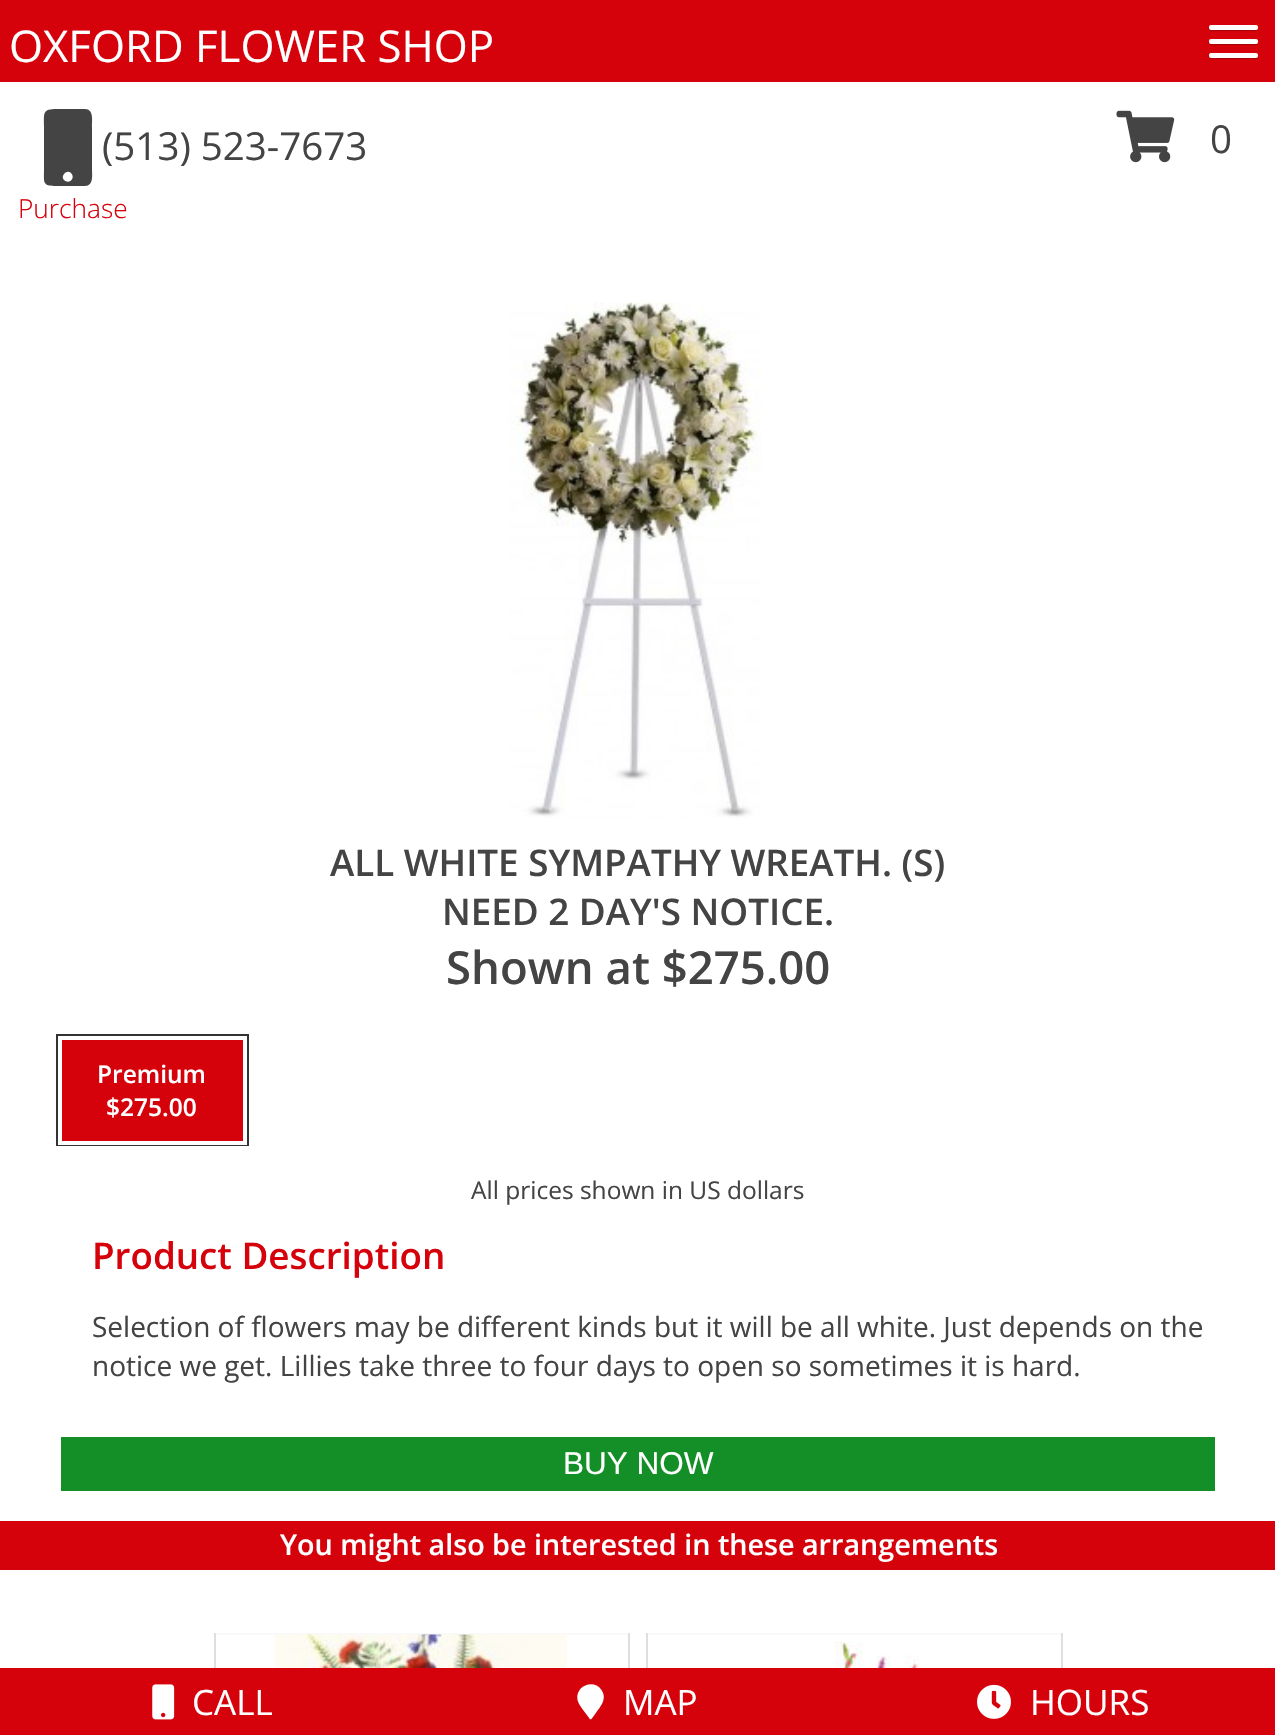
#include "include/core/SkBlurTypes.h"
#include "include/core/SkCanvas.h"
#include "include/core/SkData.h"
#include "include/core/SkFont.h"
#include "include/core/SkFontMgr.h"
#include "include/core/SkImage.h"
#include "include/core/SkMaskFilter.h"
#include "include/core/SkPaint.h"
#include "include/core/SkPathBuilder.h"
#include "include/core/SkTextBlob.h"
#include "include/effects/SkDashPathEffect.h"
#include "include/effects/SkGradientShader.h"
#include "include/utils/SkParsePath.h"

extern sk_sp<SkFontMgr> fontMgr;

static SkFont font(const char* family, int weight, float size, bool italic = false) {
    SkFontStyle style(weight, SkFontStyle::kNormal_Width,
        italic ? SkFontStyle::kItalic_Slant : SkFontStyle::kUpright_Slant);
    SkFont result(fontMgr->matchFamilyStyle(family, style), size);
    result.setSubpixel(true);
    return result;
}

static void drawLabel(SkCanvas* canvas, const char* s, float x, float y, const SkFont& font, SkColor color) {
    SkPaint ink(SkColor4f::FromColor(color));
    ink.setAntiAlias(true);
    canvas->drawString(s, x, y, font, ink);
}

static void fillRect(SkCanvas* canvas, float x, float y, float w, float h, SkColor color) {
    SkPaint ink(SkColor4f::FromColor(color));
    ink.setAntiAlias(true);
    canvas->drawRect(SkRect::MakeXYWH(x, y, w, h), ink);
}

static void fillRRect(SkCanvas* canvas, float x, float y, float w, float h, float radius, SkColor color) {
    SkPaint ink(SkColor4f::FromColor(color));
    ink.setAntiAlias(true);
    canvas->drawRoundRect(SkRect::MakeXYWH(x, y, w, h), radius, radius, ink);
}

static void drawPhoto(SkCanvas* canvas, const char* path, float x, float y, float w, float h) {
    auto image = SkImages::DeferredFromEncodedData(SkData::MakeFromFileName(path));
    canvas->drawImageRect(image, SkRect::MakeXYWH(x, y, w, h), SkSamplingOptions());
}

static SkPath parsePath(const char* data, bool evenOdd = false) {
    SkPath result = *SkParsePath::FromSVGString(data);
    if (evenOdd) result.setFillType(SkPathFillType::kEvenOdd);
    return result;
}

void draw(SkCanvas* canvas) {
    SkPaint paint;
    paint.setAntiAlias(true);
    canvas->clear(0xFFFFFFFF);
    fillRect(canvas, 0, 0, 1275, 82, 0xFFD5020B);
    SkFont font1 = font("Open Sans", 400, 43.75f);
    drawLabel(canvas, "OXFORD FLOWER SHOP", 9, 62, font1, 0xFFFFFFFF);
    paint.setColor(0xFFA00208);
    canvas->drawPath(parsePath("M1209 27C1206 33 1218 31 1218 31H1256C1257 31 1258 30 1258 29L1257 30H1219C1215 30 1209 32 1209 27Z"), paint);
    fillRRect(canvas, 1209, 25, 49, 5, 2, 0xFFFFFFFF);
    canvas->drawPath(parsePath("M1209 41C1206 47 1218 45 1218 45H1256C1257 45 1258 44 1258 43L1257 44H1219C1215 44 1209 46 1209 41Z"), paint);
    fillRRect(canvas, 1209, 39, 49, 5, 2, 0xFFFFFFFF);
    canvas->drawPath(parsePath("M1209 55C1206 61 1218 59 1218 59H1256C1257 59 1258 58 1258 57L1257 58H1219C1215 58 1209 60 1209 55Z"), paint);
    fillRRect(canvas, 1209, 53, 49, 5, 2, 0xFFFFFFFF);
    paint.setColor(0xFF444444);
    canvas->drawPath(parsePath("M85 109C94 109 92 121 92 127V169C92 174 94 186 85 186H57C42 186 44 183 44 169V127C44 113 42 109 57 109ZM64 180C69 185 76 178 71 173C67 169 60 176 64 180Z"), paint);
    SkFont font2 = font("Open Sans", 400, 38.5f);
    drawLabel(canvas, "(513) 523-7673", 102, 160, font2, 0xFF444444);
    drawPhoto(canvas, "assets/img1.png", 1116, 110, 59, 53);
    drawLabel(canvas, "0", 1210, 153, font2, 0xFF444444);
    SkFont font3 = font("Open Sans", 300, 26.25f);
    drawLabel(canvas, "Purchase", 18, 218, font3, 0xFFD5020B);
    drawPhoto(canvas, "assets/img2.png", 509, 302, 252, 516);
    SkFont font4 = font("Open Sans", 600, 36.75f);
    drawLabel(canvas, "ALL WHITE SYMPATHY WREATH. (S)", 330, 876, font4, 0xFF444444);
    drawLabel(canvas, "NEED 2 DAY'S NOTICE.", 442, 925, font4, 0xFF444444);
    SkFont font5 = font("Open Sans", 600, 45.5f);
    drawLabel(canvas, "Shown at $275.00", 446, 984, font5, 0xFF444444);
    paint.setStroke(true);
    paint.setStrokeWidth(2);
    paint.setColor(0xFF333333);
    canvas->drawRect(SkRect::MakeXYWH(57, 1035, 191, 110), paint);
    paint.setStroke(false);
    paint.setColor(0xFFD5020B);
    canvas->drawRect(SkRect::MakeXYWH(60, 1038, 185, 105), paint);
    paint.setStroke(true);
    paint.setStrokeWidth(4);
    paint.setColor(0xFFFFFFFF);
    canvas->drawRect(SkRect::MakeXYWH(60, 1038, 185, 105), paint);
    SkFont font6 = font("Open Sans", 600, 24.5f);
    drawLabel(canvas, "Premium", 97, 1083, font6, 0xFFFFFFFF);
    drawLabel(canvas, "$275.00", 106, 1116, font6, 0xFFFFFFFF);
    SkFont font7 = font("Open Sans", 400, 24.5f);
    drawLabel(canvas, "All prices shown in US dollars", 471, 1199, font7, 0xFF444444);
    drawLabel(canvas, "Product Description", 92, 1269, font4, 0xFFD5020B);
    SkFont font8 = font("Open Sans", 400, 28);
    drawLabel(canvas, "Selection of flowers may be different kinds but it will be all white. Just depends on the", 92, 1337, font8, 0xFF444444);
    drawLabel(canvas, "notice we get. Lillies take three to four days to open so sometimes it is hard.", 92, 1376, font8, 0xFF444444);
    fillRect(canvas, 61, 1437, 1154, 54, 0xFF148F27);
    SkFont font9 = font("Liberation Sans", 400, 31.5f);
    drawLabel(canvas, "BUY NOW", 563, 1474, font9, 0xFFFFFFFF);
    fillRect(canvas, 0, 1521, 1275, 49, 0xFFD5020B);
    SkFont font10 = font("Open Sans", 600, 28.7f);
    drawLabel(canvas, "You might also be interested in these arrangements", 280, 1555, font10, 0xFFFFFFFF);
    fillRect(canvas, 214, 1633, 416, 2, 0xFFF9F9F9);
    fillRect(canvas, 628, 1633, 2, 35, 0xFFE2DEDD);
    fillRect(canvas, 214, 1633, 2, 35, 0xFFE2DEDD);
    drawPhoto(canvas, "assets/img3.png", 274, 1634, 293, 34);
    fillRect(canvas, 646, 1633, 416, 2, 0xFFF9F9F9);
    fillRect(canvas, 1061, 1633, 2, 35, 0xFFE2DEDD);
    fillRect(canvas, 646, 1633, 2, 35, 0xFFE2DEDD);
    drawPhoto(canvas, "assets/img4.png", 765, 1641, 184, 27);
    fillRect(canvas, 0, 1668, 1275, 67, 0xFFD5020B);
    drawPhoto(canvas, "assets/img5.png", 152, 1684, 23, 36);
    SkFont font11 = font("Open Sans", 400, 35);
    drawLabel(canvas, "CALL", 192, 1715, font11, 0xFFFFFFFF);
    paint.setStroke(false);
    canvas->drawPath(parsePath("M589.5 1718.5L583.5 1710.5C581.5 1707.5 578.5 1704 577.5 1700C575 1686 593.5 1678.5 601.5 1690C607.5 1699 600.5 1706.5 595.5 1713.5L591.5 1719C590.5 1719.5 589.5 1719.5 589.5 1718.5Z"), paint);
    drawLabel(canvas, "MAP", 623, 1715, font11, 0xFFFFFFFF);
    drawPhoto(canvas, "assets/img6.png", 977, 1684, 34, 35);
    drawLabel(canvas, "HOURS", 1030, 1715, font11, 0xFFFFFFFF);
}
